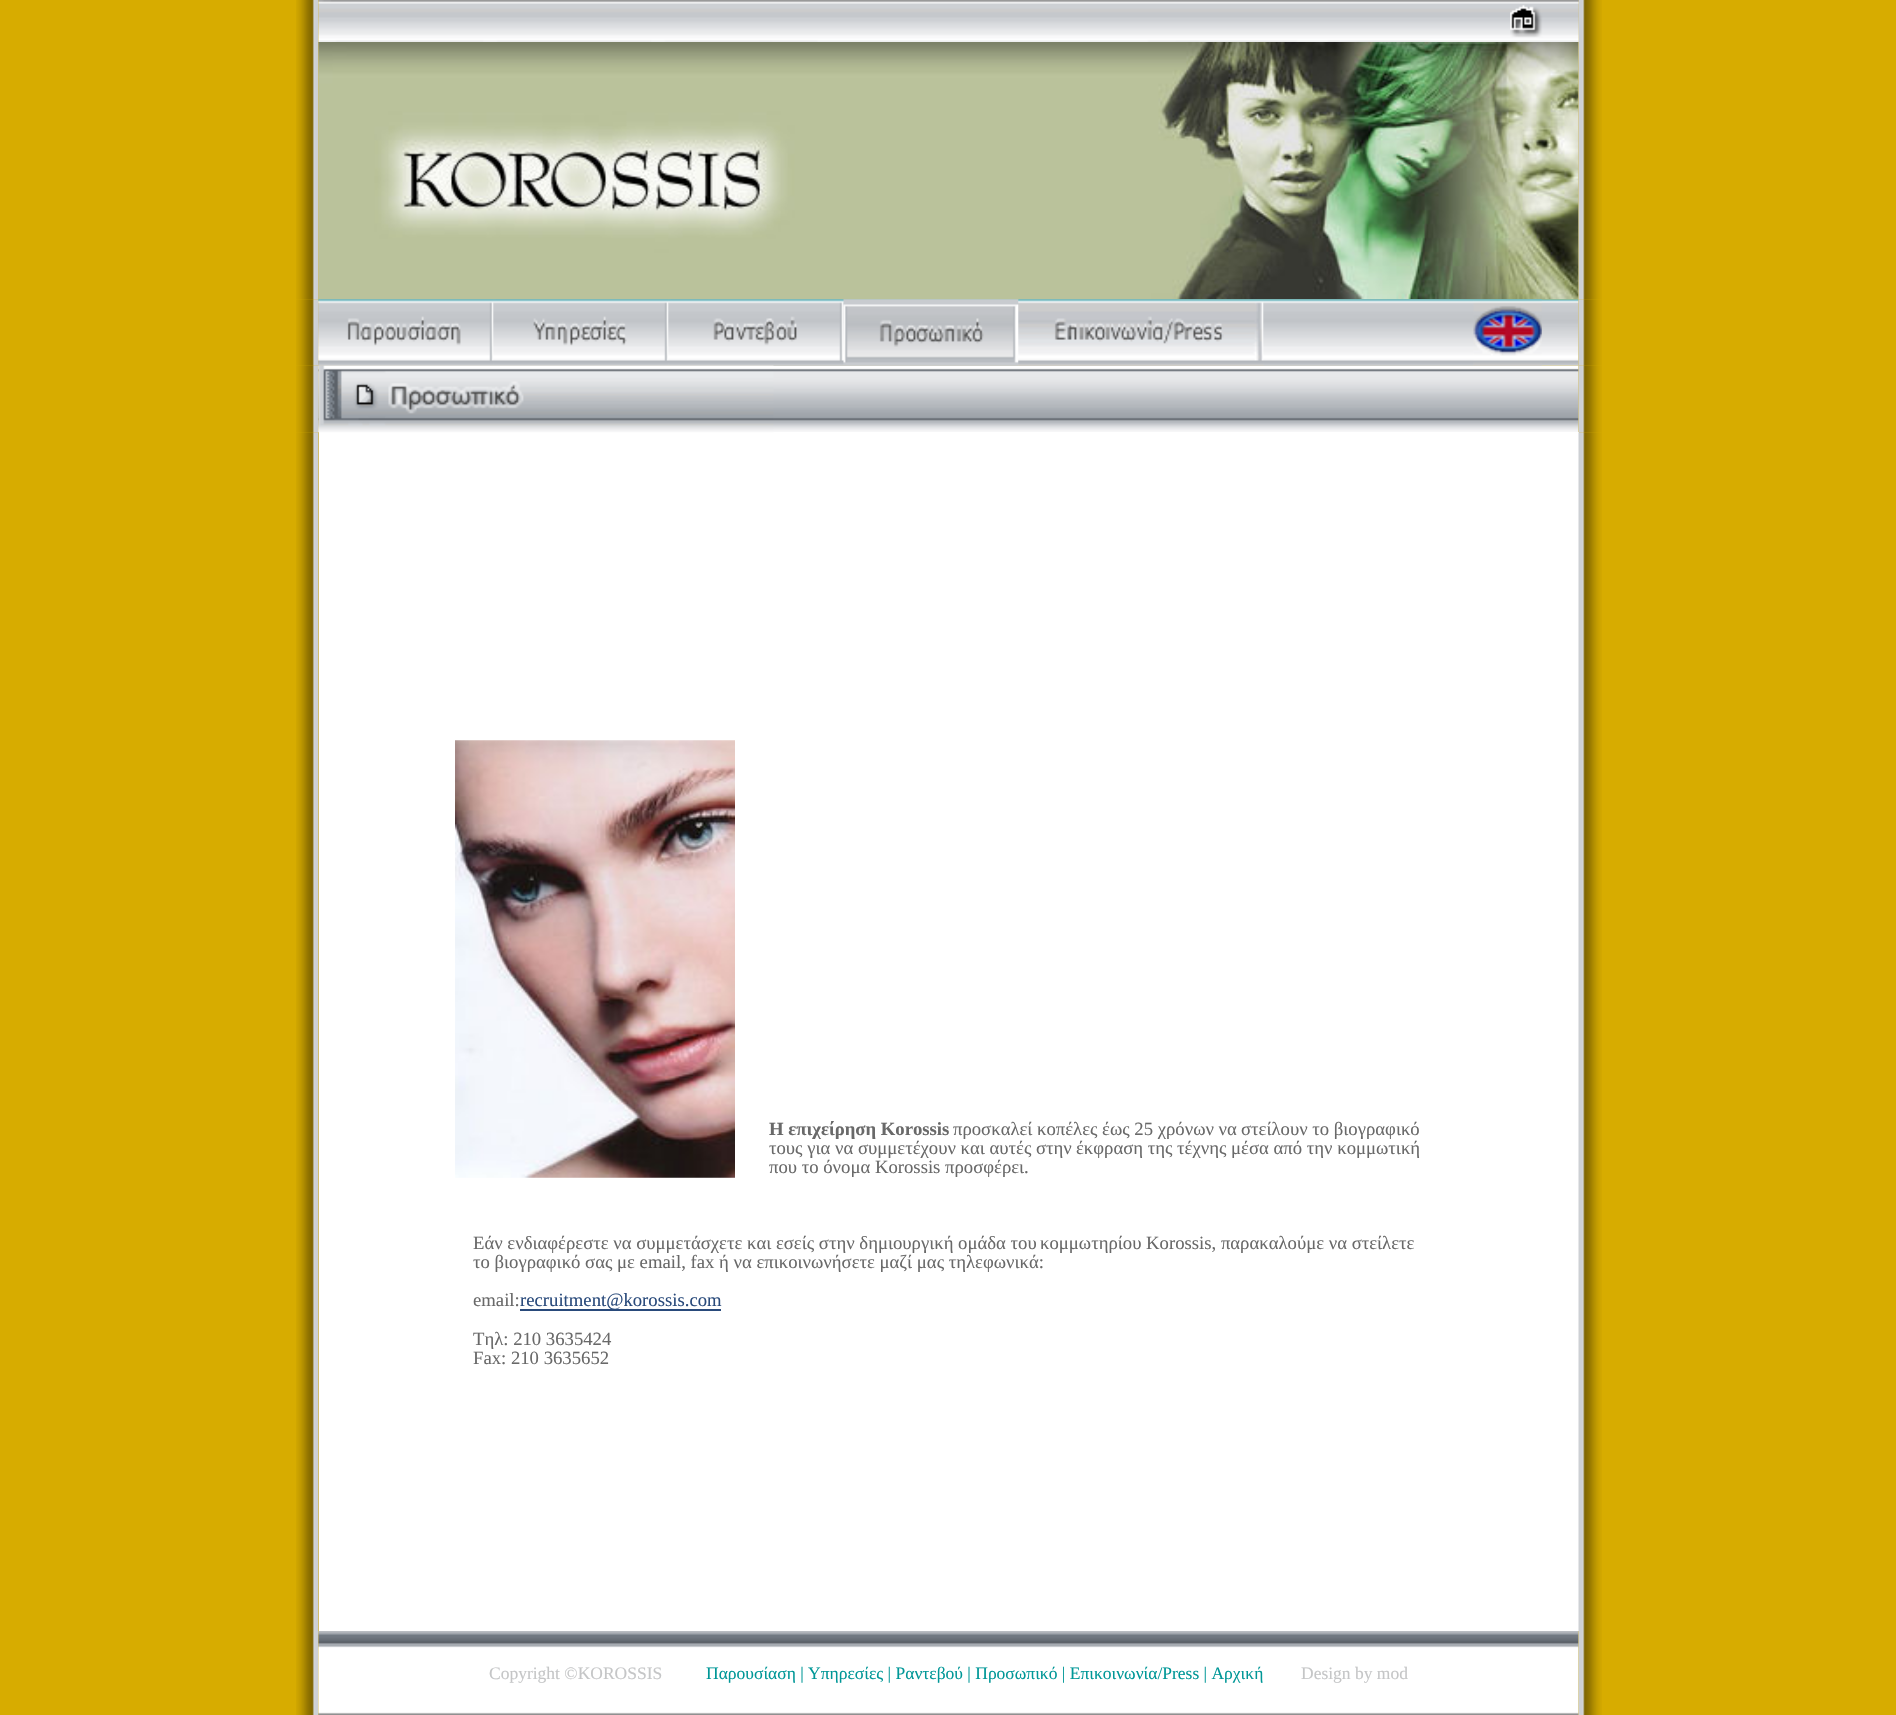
#include "include/core/SkBlurTypes.h"
#include "include/core/SkCanvas.h"
#include "include/core/SkData.h"
#include "include/core/SkFont.h"
#include "include/core/SkFontMgr.h"
#include "include/core/SkImage.h"
#include "include/core/SkMaskFilter.h"
#include "include/core/SkPaint.h"
#include "include/core/SkPathBuilder.h"
#include "include/core/SkTextBlob.h"
#include "include/effects/SkDashPathEffect.h"
#include "include/effects/SkGradientShader.h"
#include "include/utils/SkParsePath.h"

extern sk_sp<SkFontMgr> fontMgr;

static SkFont font(const char* family, int weight, float size, bool italic = false) {
    SkFontStyle style(weight, SkFontStyle::kNormal_Width,
        italic ? SkFontStyle::kItalic_Slant : SkFontStyle::kUpright_Slant);
    SkFont result(fontMgr->matchFamilyStyle(family, style), size);
    result.setSubpixel(true);
    return result;
}

static void drawLabel(SkCanvas* canvas, const char* s, float x, float y, const SkFont& font, SkColor color) {
    SkPaint ink(SkColor4f::FromColor(color));
    ink.setAntiAlias(true);
    canvas->drawString(s, x, y, font, ink);
}

static void fillRect(SkCanvas* canvas, float x, float y, float w, float h, SkColor color) {
    SkPaint ink(SkColor4f::FromColor(color));
    ink.setAntiAlias(true);
    canvas->drawRect(SkRect::MakeXYWH(x, y, w, h), ink);
}

static void drawPhoto(SkCanvas* canvas, const char* path, float x, float y, float w, float h) {
    auto image = SkImages::DeferredFromEncodedData(SkData::MakeFromFileName(path));
    canvas->drawImageRect(image, SkRect::MakeXYWH(x, y, w, h), SkSamplingOptions());
}

void draw(SkCanvas* canvas) {
    SkPaint paint;
    paint.setAntiAlias(true);
    canvas->clear(0xFFD7AC00);
    drawPhoto(canvas, "assets/img1.png", 296, 0, 23, 42);
    drawPhoto(canvas, "assets/img2.png", 318, 0, 1261, 42);
    drawPhoto(canvas, "assets/img4.png", 1578, 0, 24, 42);
    drawPhoto(canvas, "assets/img3.png", 1510, 0, 69, 42);
    drawPhoto(canvas, "assets/img5.png", 296, 42, 23, 258);
    drawPhoto(canvas, "assets/img6.png", 318, 42, 1261, 258);
    drawPhoto(canvas, "assets/img7.png", 1578, 42, 24, 258);
    drawPhoto(canvas, "assets/img8.png", 296, 299, 23, 67);
    drawPhoto(canvas, "assets/img9.png", 318, 299, 1261, 67);
    drawPhoto(canvas, "assets/img18.png", 296, 365, 23, 68);
    drawPhoto(canvas, "assets/img17.png", 1578, 299, 24, 67);
    drawPhoto(canvas, "assets/img19.png", 318, 365, 1261, 68);
    drawPhoto(canvas, "assets/img10.png", 318, 299, 176, 67);
    drawPhoto(canvas, "assets/img11.png", 493, 299, 176, 67);
    drawPhoto(canvas, "assets/img12.png", 668, 299, 176, 67);
    drawPhoto(canvas, "assets/img13.png", 843, 299, 176, 67);
    drawPhoto(canvas, "assets/img14.png", 1018, 299, 246, 67);
    drawPhoto(canvas, "assets/img15.png", 1263, 299, 211, 67);
    drawPhoto(canvas, "assets/img16.png", 1473, 299, 69, 67);
    drawPhoto(canvas, "assets/img22.png", 296, 432, 23, 1199);
    drawPhoto(canvas, "assets/img21.png", 1578, 365, 24, 68);
    fillRect(canvas, 319, 432, 1260, 1199, 0xFFFFFFFF);
    drawPhoto(canvas, "assets/img20.png", 318, 365, 456, 68);
    drawPhoto(canvas, "assets/img23.png", 455, 740, 280, 438);
    SkFont font1 = font("Liberation Serif", 700, 18.7f);
    drawLabel(canvas, "Η επιχείρηση Korossis", 769, 1135, font1, 0xFF696969);
    SkFont font2 = font("Liberation Serif", 400, 18.7f);
    drawLabel(canvas, "προσκαλεί κοπέλες έως 25 χρόνων να", 953, 1135, font2, 0xFF696969);
    drawLabel(canvas, "στείλουν το βιογραφικό", 1241, 1135, font2, 0xFF696969);
    drawLabel(canvas, "τους για να συμμετέχουν και αυτές στην", 769, 1154, font2, 0xFF696969);
    drawLabel(canvas, "έκφραση της τέχνης μέσα από την κομμωτική", 1076, 1154, font2, 0xFF696969);
    drawLabel(canvas, "που το όνομα Korossis προσφέρει.", 769, 1173, font2, 0xFF696969);
    drawLabel(canvas, "Εάν ενδιαφέρεστε να συμμετάσχετε και εσείς στην δημιουργική ομάδα του", 473, 1249, font2, 0xFF696969);
    drawLabel(canvas, "κομμωτηρίου Korossis, παρακαλούμε να στείλετε", 1040, 1249, font2, 0xFF696969);
    drawLabel(canvas, "το βιογραφικό σας με email, fax ή να επικοινωνήσετε μαζί μας τηλεφωνικά:", 473, 1268, font2, 0xFF696969);
    drawLabel(canvas, "email:", 473, 1306, font2, 0xFF696969);
    fillRect(canvas, 520, 1309, 201, 2, 0xFF294A7B);
    drawLabel(canvas, "recruitment@korossis.com", 520, 1306, font2, 0xFF294A7B);
    drawLabel(canvas, "Τηλ: 210 3635424", 473, 1345, font2, 0xFF696969);
    drawLabel(canvas, "Fax: 210 3635652", 473, 1364, font2, 0xFF696969);
    drawPhoto(canvas, "assets/img24.png", 1578, 432, 24, 1199);
    drawPhoto(canvas, "assets/img25.png", 296, 1631, 23, 84);
    drawPhoto(canvas, "assets/img26.png", 318, 1631, 1261, 84);
    SkFont font3 = font("Liberation Serif", 400, 17.5f);
    drawLabel(canvas, "Copyright ©KOROSSIS", 489, 1679, font3, 0xFFC5C6C7);
    drawLabel(canvas, "Παρουσίαση | Υπηρεσίες | Ραντεβού | Προσωπικό | Επικοινωνία/Press | Αρχική", 706, 1679, font3, 0xFF009797);
    drawLabel(canvas, "Design by mod", 1301, 1679, font3, 0xFFC5C6C7);
    drawPhoto(canvas, "assets/img27.png", 1578, 1631, 24, 84);
}
